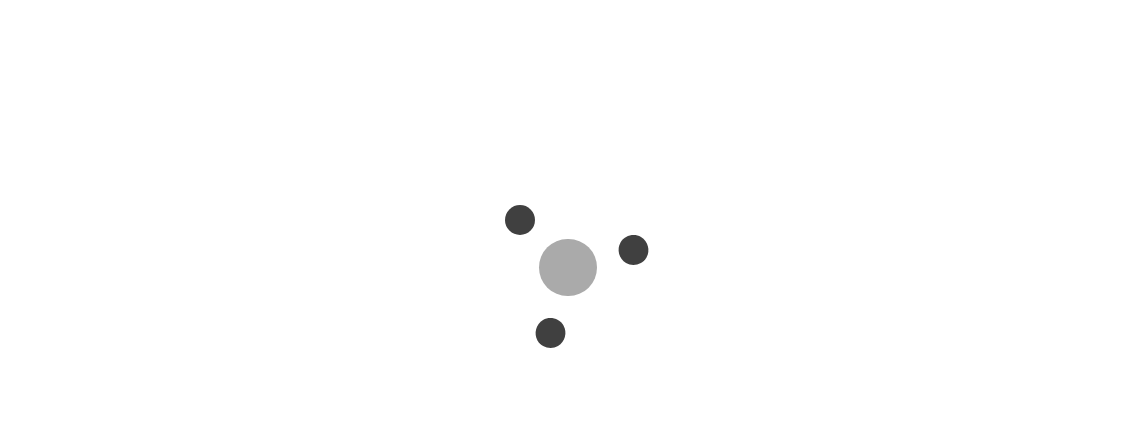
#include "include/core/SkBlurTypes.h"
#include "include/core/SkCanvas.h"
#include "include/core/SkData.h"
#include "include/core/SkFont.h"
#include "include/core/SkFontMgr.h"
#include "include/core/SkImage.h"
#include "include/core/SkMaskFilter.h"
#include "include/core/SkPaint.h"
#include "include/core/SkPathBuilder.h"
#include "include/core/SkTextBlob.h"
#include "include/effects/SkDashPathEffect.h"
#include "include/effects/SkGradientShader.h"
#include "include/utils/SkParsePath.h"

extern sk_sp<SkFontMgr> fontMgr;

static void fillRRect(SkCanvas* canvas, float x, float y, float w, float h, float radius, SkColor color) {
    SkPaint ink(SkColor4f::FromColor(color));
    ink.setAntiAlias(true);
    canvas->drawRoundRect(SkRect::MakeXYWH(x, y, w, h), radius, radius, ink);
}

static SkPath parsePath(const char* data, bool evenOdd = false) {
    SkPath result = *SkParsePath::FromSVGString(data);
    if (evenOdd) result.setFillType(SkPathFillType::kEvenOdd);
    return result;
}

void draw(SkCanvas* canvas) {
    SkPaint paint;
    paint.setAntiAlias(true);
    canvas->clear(0xFFFFFFFF);
    paint.setColor(0xFF404040);
    canvas->drawCircle(520, 220, 15, paint);
    fillRRect(canvas, 539, 239, 58, 57, 28.5f, 0xFFAAAAAA);
    canvas->drawPath(parsePath("M646.5 257.5C642.5 264.5 633 267 626 263C619 259 616.5 249.5 620.5 242.5C624.5 235.5 634 233 641 237C648 241 650.5 250.5 646.5 257.5Z"), paint);
    canvas->drawPath(parsePath("M537.5 340.5C533.5 333.5 536 324 543 320C550 316 559.5 318.5 563.5 325.5C567.5 332.5 565 342 558 346C551 350 541.5 347.5 537.5 340.5Z"), paint);
}
